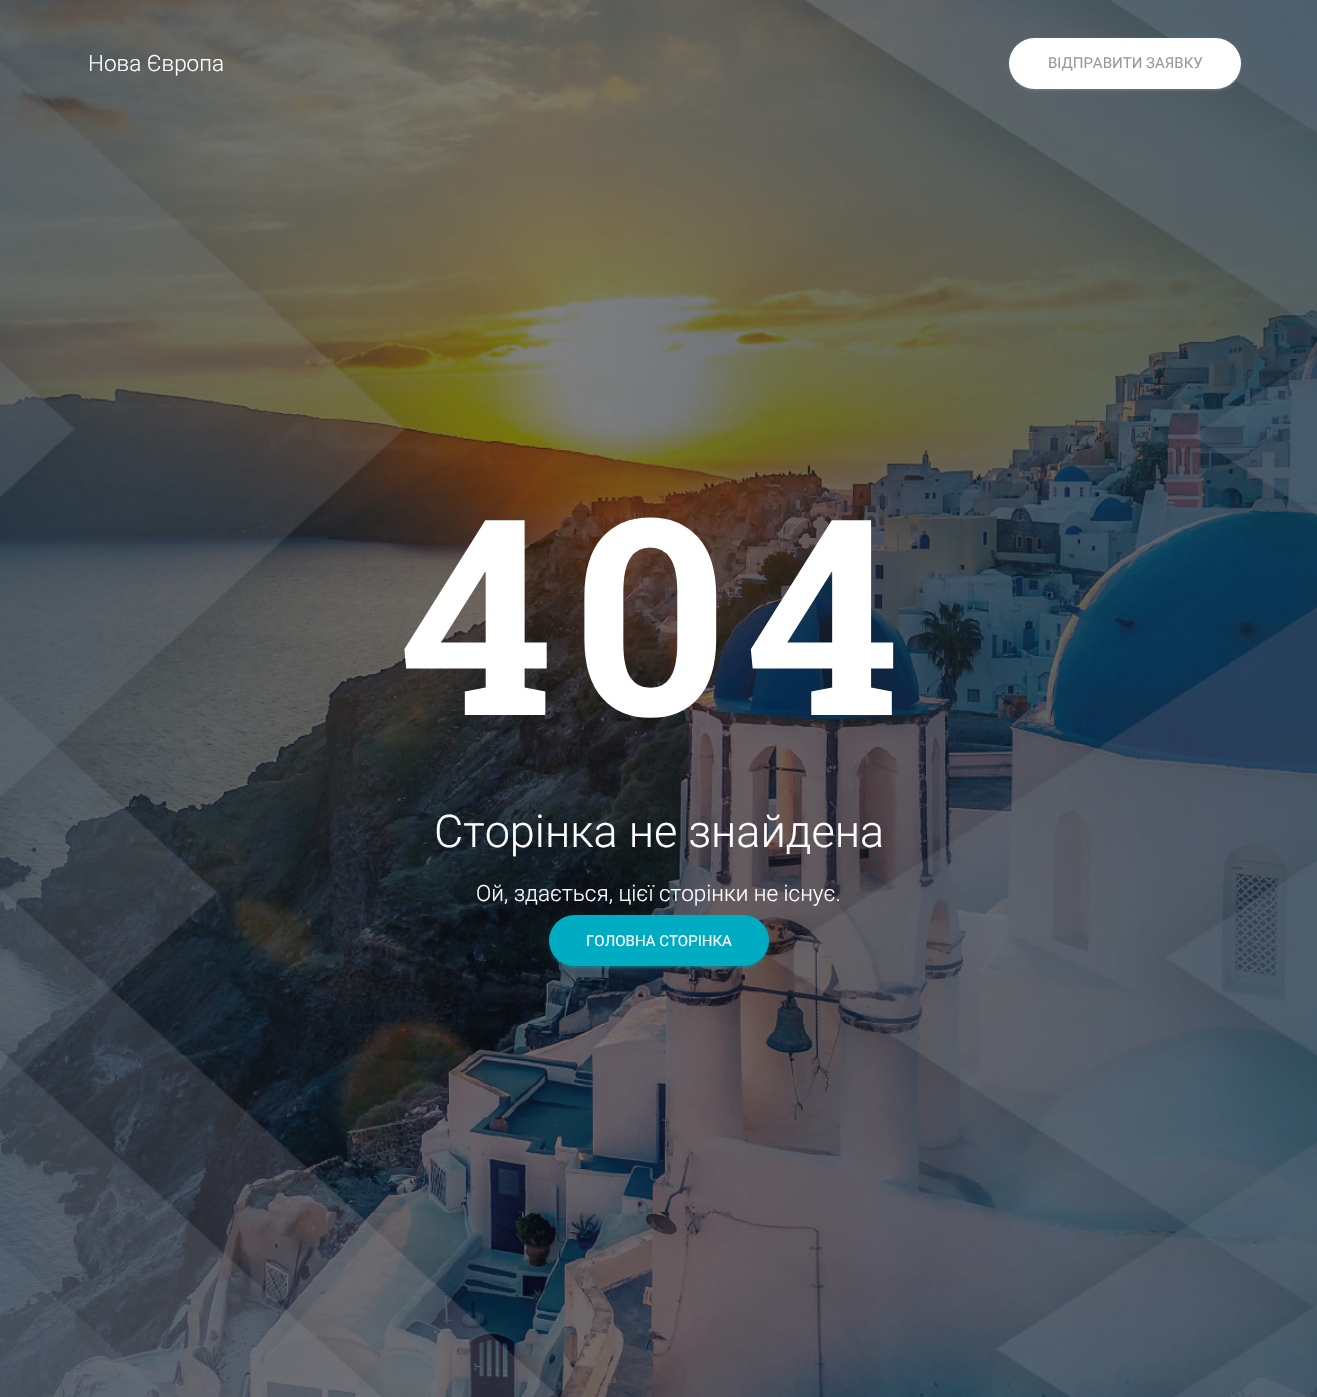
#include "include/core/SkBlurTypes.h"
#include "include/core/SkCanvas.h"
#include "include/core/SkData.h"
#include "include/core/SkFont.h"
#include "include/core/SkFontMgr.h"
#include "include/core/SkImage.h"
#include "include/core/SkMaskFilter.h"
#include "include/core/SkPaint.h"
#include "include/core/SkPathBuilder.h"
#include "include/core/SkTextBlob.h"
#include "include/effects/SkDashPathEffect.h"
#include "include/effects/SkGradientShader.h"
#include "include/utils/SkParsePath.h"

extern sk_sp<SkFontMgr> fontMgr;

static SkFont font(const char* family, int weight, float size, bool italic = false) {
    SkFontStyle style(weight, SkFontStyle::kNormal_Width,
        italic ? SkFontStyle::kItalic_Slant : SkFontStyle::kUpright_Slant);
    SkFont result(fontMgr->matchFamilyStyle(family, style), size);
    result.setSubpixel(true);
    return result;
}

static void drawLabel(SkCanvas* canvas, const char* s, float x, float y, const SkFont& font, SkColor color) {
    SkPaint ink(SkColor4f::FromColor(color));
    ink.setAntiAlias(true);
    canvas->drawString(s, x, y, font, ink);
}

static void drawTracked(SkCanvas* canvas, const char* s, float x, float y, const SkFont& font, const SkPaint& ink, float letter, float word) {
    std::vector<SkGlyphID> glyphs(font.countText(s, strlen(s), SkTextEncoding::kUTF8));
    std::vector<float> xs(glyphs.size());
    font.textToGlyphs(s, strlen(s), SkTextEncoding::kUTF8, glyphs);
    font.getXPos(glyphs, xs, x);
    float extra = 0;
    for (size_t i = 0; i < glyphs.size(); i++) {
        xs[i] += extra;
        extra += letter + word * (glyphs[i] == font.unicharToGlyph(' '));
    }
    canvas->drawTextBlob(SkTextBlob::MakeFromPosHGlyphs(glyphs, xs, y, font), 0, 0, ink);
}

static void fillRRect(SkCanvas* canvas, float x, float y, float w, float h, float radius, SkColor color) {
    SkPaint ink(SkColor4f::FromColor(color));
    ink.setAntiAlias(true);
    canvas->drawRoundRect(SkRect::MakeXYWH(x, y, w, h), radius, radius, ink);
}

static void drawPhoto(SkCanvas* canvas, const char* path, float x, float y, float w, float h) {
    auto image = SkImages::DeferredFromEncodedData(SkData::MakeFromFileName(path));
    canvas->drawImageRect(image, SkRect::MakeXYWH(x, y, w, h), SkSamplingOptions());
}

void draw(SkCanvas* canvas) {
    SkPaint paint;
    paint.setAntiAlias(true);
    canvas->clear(0xFFFFFFFF);
    drawPhoto(canvas, "assets/img1.png", 0, 0, 1317, 1397);
    SkFont font1 = font("Roboto", 300, 22.5f);
    drawLabel(canvas, "Нова Європа", 88, 71, font1, 0xFFFFFFFF);
    paint.setColor(0x1F999999);
    paint.setMaskFilter(SkMaskFilter::MakeBlur(kNormal_SkBlurStyle, 3));
    canvas->drawRoundRect(SkRect::MakeXYWH(1009, 39, 232, 51), 25.5f, 25.5f, paint);
    paint.setMaskFilter(nullptr);
    paint.setColor(0x33999999);
    paint.setMaskFilter(SkMaskFilter::MakeBlur(kNormal_SkBlurStyle, 0.5f));
    canvas->drawRoundRect(SkRect::MakeXYWH(1011, 44, 228, 46), 23, 23, paint);
    paint.setMaskFilter(nullptr);
    paint.setColor(0x24999999);
    paint.setMaskFilter(SkMaskFilter::MakeBlur(kNormal_SkBlurStyle, 1));
    canvas->drawRoundRect(SkRect::MakeXYWH(1009, 40, 232, 51), 25.5f, 25.5f, paint);
    paint.setMaskFilter(nullptr);
    fillRRect(canvas, 1009, 38, 232, 51, 25.5f, 0xFFFFFFFF);
    SkFont font2 = font("Roboto", 400, 15);
    drawLabel(canvas, "ВІДПРАВИТИ ЗАЯВКУ", 1048, 68, font2, 0xFF999999);
    SkFont font3 = font("Roboto Slab", 700, 274);
    paint.setColor(0xFFFFFFFF);
    drawTracked(canvas, "404", 399, 715, font3, paint, 17.5f, 0);
    SkFont font4 = font("Roboto", 300, 45);
    drawLabel(canvas, "Сторінка не знайдена", 434, 847, font4, 0xFFFFFFFF);
    drawLabel(canvas, "Ой, здається, цієї сторінки не існує.", 476, 901, font1, 0xFFFFFFFF);
    paint.setColor(0x1F00ACC1);
    paint.setMaskFilter(SkMaskFilter::MakeBlur(kNormal_SkBlurStyle, 3));
    canvas->drawRoundRect(SkRect::MakeXYWH(549, 916, 220, 52), 26, 26, paint);
    paint.setMaskFilter(nullptr);
    paint.setColor(0x3300ACC1);
    paint.setMaskFilter(SkMaskFilter::MakeBlur(kNormal_SkBlurStyle, 0.5f));
    canvas->drawRoundRect(SkRect::MakeXYWH(551, 921, 215, 47), 23.5f, 23.5f, paint);
    paint.setMaskFilter(nullptr);
    paint.setColor(0x2400ACC1);
    paint.setMaskFilter(SkMaskFilter::MakeBlur(kNormal_SkBlurStyle, 1));
    canvas->drawRoundRect(SkRect::MakeXYWH(549, 918, 220, 51), 25.5f, 25.5f, paint);
    paint.setMaskFilter(nullptr);
    fillRRect(canvas, 549, 915, 220, 51, 25.5f, 0xFF00ACC1);
    drawLabel(canvas, "ГОЛОВНА СТОРІНКА", 586, 946, font2, 0xFFFFFFFF);
}
